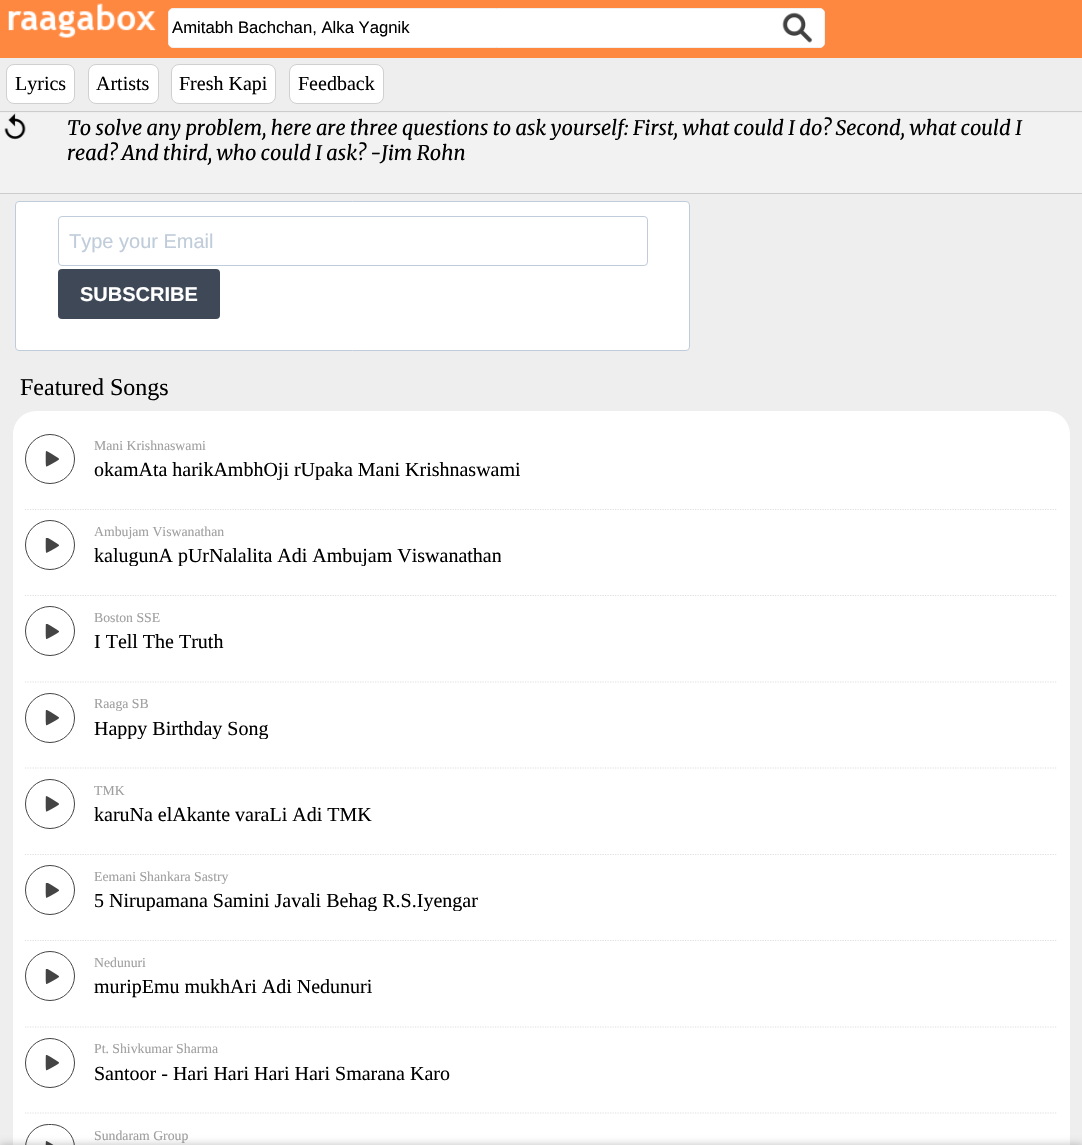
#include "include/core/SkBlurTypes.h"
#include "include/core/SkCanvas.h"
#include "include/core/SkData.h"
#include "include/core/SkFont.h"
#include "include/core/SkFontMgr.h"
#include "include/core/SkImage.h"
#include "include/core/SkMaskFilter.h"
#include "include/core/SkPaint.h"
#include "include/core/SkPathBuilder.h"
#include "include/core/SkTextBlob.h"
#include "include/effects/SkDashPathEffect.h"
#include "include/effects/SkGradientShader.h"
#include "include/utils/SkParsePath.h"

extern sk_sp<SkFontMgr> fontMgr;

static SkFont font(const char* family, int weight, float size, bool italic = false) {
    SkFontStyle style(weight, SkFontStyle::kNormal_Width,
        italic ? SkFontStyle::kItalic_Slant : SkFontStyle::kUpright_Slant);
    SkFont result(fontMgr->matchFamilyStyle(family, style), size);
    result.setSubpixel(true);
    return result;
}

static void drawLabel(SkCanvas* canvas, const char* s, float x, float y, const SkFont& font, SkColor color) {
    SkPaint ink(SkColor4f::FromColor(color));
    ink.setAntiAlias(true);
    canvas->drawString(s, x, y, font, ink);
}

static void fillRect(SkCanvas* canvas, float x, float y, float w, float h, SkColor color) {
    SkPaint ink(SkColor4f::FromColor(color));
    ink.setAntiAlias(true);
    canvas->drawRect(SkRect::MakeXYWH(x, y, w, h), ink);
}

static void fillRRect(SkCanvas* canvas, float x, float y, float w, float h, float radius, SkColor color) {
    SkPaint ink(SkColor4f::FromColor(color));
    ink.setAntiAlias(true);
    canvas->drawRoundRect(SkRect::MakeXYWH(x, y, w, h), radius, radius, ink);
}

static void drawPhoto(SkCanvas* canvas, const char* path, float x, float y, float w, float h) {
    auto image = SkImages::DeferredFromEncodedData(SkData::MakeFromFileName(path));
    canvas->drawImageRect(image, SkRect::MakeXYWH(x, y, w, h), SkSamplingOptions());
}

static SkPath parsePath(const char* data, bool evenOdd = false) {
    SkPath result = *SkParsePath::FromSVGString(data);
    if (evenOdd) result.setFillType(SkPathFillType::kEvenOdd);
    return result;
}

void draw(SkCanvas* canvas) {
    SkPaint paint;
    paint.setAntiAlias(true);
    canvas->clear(0xFFEEEEEE);
    fillRect(canvas, 0, 0, 1082, 58, 0xFFFF8840);
    drawPhoto(canvas, "assets/img1.png", 8, 3, 149, 35);
    paint.setColor(0xFFFFFFFF);
    canvas->drawRoundRect(SkRect::MakeXYWH(168.5f, 8.5f, 656, 39), 4.5f, 4.5f, paint);
    paint.setStroke(true);
    paint.setStrokeWidth(1);
    paint.setColor(0xFFF0F0F0);
    canvas->drawRoundRect(SkRect::MakeXYWH(168.5f, 8.5f, 656, 39), 4.5f, 4.5f, paint);
    SkFont font1 = font("Liberation Sans", 400, 16.7f);
    drawLabel(canvas, "Amitabh Bachchan, Alka Yagnik", 172, 33, font1, 0xFF000000);
    drawPhoto(canvas, "assets/img2.png", 782, 12, 31, 31);
    paint.setStroke(false);
    paint.setColor(0xFFFFFFFF);
    canvas->drawRoundRect(SkRect::MakeXYWH(6.5f, 64.5f, 68, 39), 7.5f, 7.5f, paint);
    paint.setStroke(true);
    paint.setColor(0xFFD0D0D0);
    canvas->drawRoundRect(SkRect::MakeXYWH(6.5f, 64.5f, 68, 39), 7.5f, 7.5f, paint);
    SkFont font2 = font("Liberation Serif", 400, 20);
    drawLabel(canvas, "Lyrics", 15, 90, font2, 0xFF000000);
    paint.setStroke(false);
    paint.setColor(0xFFFFFFFF);
    canvas->drawRoundRect(SkRect::MakeXYWH(88.5f, 64.5f, 70, 39), 7.5f, 7.5f, paint);
    paint.setStroke(true);
    paint.setColor(0xFFD0D0D0);
    canvas->drawRoundRect(SkRect::MakeXYWH(88.5f, 64.5f, 70, 39), 7.5f, 7.5f, paint);
    drawLabel(canvas, "Artists", 96, 90, font2, 0xFF000000);
    paint.setStroke(false);
    paint.setColor(0xFFFFFFFF);
    canvas->drawRoundRect(SkRect::MakeXYWH(171.5f, 64.5f, 104, 39), 7.5f, 7.5f, paint);
    paint.setStroke(true);
    paint.setColor(0xFFD0D0D0);
    canvas->drawRoundRect(SkRect::MakeXYWH(171.5f, 64.5f, 104, 39), 7.5f, 7.5f, paint);
    drawLabel(canvas, "Fresh Kapi", 179, 90, font2, 0xFF000000);
    paint.setStroke(false);
    paint.setColor(0xFFFFFFFF);
    canvas->drawRoundRect(SkRect::MakeXYWH(289.5f, 64.5f, 94, 39), 7.5f, 7.5f, paint);
    paint.setStroke(true);
    paint.setColor(0xFFD0D0D0);
    canvas->drawRoundRect(SkRect::MakeXYWH(289.5f, 64.5f, 94, 39), 7.5f, 7.5f, paint);
    drawLabel(canvas, "Feedback", 298, 90, font2, 0xFF000000);
    fillRect(canvas, 0, 113, 1082, 80, 0xFFF2F2F2);
    drawPhoto(canvas, "assets/img3.png", 4, 113, 22, 27);
    paint.setColor(0xFFCCCCCC);
    canvas->drawRect(SkRect::MakeXYWH(-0.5f, 111.5f, 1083, 82), paint);
    SkFont font3 = font("Merriweather", 400, 20, true);
    drawLabel(canvas, "To solve any problem, here are three questions to ask yourself: First, what could I do? Second, what could I", 67, 135, font3, 0xFF000000);
    drawLabel(canvas, "read? And third, who could I ask? -Jim Rohn", 67, 160, font3, 0xFF000000);
    paint.setStroke(false);
    paint.setColor(0xFFFFFFFF);
    canvas->drawRoundRect(SkRect::MakeXYWH(15.5f, 201.5f, 674, 149), 3.5f, 3.5f, paint);
    paint.setStroke(true);
    paint.setColor(0xFFC0CCD9);
    canvas->drawRoundRect(SkRect::MakeXYWH(15.5f, 201.5f, 674, 149), 3.5f, 3.5f, paint);
    paint.setColor(0xFFC0CCDA);
    canvas->drawRoundRect(SkRect::MakeXYWH(58.5f, 216.5f, 589, 49), 3.5f, 3.5f, paint);
    SkFont font4 = font("Liberation Sans", 400, 20);
    drawLabel(canvas, "Type your Email", 69, 248, font4, 0xFFC0CCDA);
    fillRRect(canvas, 58, 269, 162, 50, 4, 0xFF3E4857);
    SkFont font5 = font("Liberation Sans", 700, 20);
    drawLabel(canvas, "SUBSCRIBE", 80, 301, font5, 0xFFFFFFFF);
    SkFont font6 = font("Liberation Serif", 400, 24);
    drawLabel(canvas, "Featured Songs", 20, 395, font6, 0xFF000000);
    fillRRect(canvas, 13, 411, 1057, 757, 23, 0xFFFFFFFF);
    paint.setStrokeWidth(1.2f);
    paint.setColor(0xFFE0E0E0);
    paint.setPathEffect(SkDashPathEffect::Make({{1.25f, 1.25f}}, 0));
    canvas->drawPath(parsePath("M25 509.5H1057.5"), paint);
    paint.setPathEffect(nullptr);
    paint.setStrokeWidth(1);
    paint.setColor(0xFF444444);
    canvas->drawCircle(50, 459, 24.5f, paint);
    drawPhoto(canvas, "assets/img4.png", 45, 451, 14, 16);
    SkFont font7 = font("Liberation Serif", 400, 13.75f);
    drawLabel(canvas, "Mani Krishnaswami", 94, 450, font7, 0xFFA0A0A0);
    canvas->save();
    canvas->clipRect(SkRect::MakeXYWH(94, 459, 426, 21));
    drawLabel(canvas, "okamAta harikAmbhOji rUpaka Mani Krishnaswami", 94, 476, font2, 0xFF000000);
    canvas->restore();
    paint.setStrokeWidth(1.2f);
    paint.setColor(0xFFE0E0E0);
    paint.setPathEffect(SkDashPathEffect::Make({{1.25f, 1.25f}}, 0));
    canvas->drawPath(parsePath("M25 595.5H1057.5"), paint);
    paint.setPathEffect(nullptr);
    paint.setStrokeWidth(1);
    paint.setColor(0xFF444444);
    canvas->drawCircle(50, 545, 24.5f, paint);
    drawPhoto(canvas, "assets/img5.png", 45, 538, 14, 15);
    drawLabel(canvas, "Ambujam Viswanathan", 94, 536, font7, 0xFFA0A0A0);
    canvas->save();
    canvas->clipRect(SkRect::MakeXYWH(94, 545, 407, 21));
    drawLabel(canvas, "kalugunA pUrNalalita Adi Ambujam Viswanathan", 94, 562, font2, 0xFF000000);
    canvas->restore();
    paint.setStrokeWidth(1.2f);
    paint.setColor(0xFFE0E0E0);
    paint.setPathEffect(SkDashPathEffect::Make({{1.25f, 1.25f}}, 0));
    canvas->drawPath(parsePath("M25 682H1057.5"), paint);
    paint.setPathEffect(nullptr);
    paint.setStrokeWidth(1);
    paint.setColor(0xFF444444);
    canvas->drawCircle(50, 631, 24.5f, paint);
    drawPhoto(canvas, "assets/img6.png", 45, 624, 14, 16);
    drawLabel(canvas, "Boston SSE", 94, 622, font7, 0xFFA0A0A0);
    drawLabel(canvas, "I Tell The Truth", 94, 648, font2, 0xFF000000);
    paint.setStrokeWidth(1.2f);
    paint.setColor(0xFFE0E0E0);
    paint.setPathEffect(SkDashPathEffect::Make({{1.25f, 1.25f}}, 0));
    canvas->drawPath(parsePath("M25 768H1057.5"), paint);
    paint.setPathEffect(nullptr);
    paint.setStrokeWidth(1);
    paint.setColor(0xFF444444);
    canvas->drawCircle(50, 718, 24.5f, paint);
    drawPhoto(canvas, "assets/img7.png", 45, 710, 14, 16);
    drawLabel(canvas, "Raaga SB", 94, 708, font7, 0xFFA0A0A0);
    canvas->save();
    canvas->clipRect(SkRect::MakeXYWH(94, 718, 175, 21));
    drawLabel(canvas, "Happy Birthday Song", 94, 735, font2, 0xFF000000);
    canvas->restore();
    paint.setStrokeWidth(1.2f);
    paint.setColor(0xFFE0E0E0);
    paint.setPathEffect(SkDashPathEffect::Make({{1.25f, 1.25f}}, 0));
    canvas->drawPath(parsePath("M25 854.5H1057.5"), paint);
    paint.setPathEffect(nullptr);
    paint.setStrokeWidth(1);
    paint.setColor(0xFF444444);
    canvas->drawCircle(50, 804, 24.5f, paint);
    drawPhoto(canvas, "assets/img4.png", 45, 796, 14, 16);
    drawLabel(canvas, "TMK", 94, 795, font7, 0xFFA0A0A0);
    drawLabel(canvas, "karuNa elAkante varaLi Adi TMK", 94, 821, font2, 0xFF000000);
    paint.setStrokeWidth(1.2f);
    paint.setColor(0xFFE0E0E0);
    paint.setPathEffect(SkDashPathEffect::Make({{1.25f, 1.25f}}, 0));
    canvas->drawPath(parsePath("M25 940.5H1057.5"), paint);
    paint.setPathEffect(nullptr);
    paint.setStrokeWidth(1);
    paint.setColor(0xFF444444);
    canvas->drawCircle(50, 890, 24.5f, paint);
    drawPhoto(canvas, "assets/img5.png", 45, 883, 14, 15);
    drawLabel(canvas, "Eemani Shankara Sastry", 94, 881, font7, 0xFFA0A0A0);
    canvas->save();
    canvas->clipRect(SkRect::MakeXYWH(94, 890, 384, 21));
    drawLabel(canvas, "5 Nirupamana Samini Javali Behag R.S.Iyengar", 94, 907, font2, 0xFF000000);
    canvas->restore();
    paint.setStrokeWidth(1.2f);
    paint.setColor(0xFFE0E0E0);
    paint.setPathEffect(SkDashPathEffect::Make({{1.25f, 1.25f}}, 0));
    canvas->drawPath(parsePath("M25 1027H1057.5"), paint);
    paint.setPathEffect(nullptr);
    paint.setStrokeWidth(1);
    paint.setColor(0xFF444444);
    canvas->drawCircle(50, 976, 24.5f, paint);
    drawPhoto(canvas, "assets/img6.png", 45, 969, 14, 16);
    drawLabel(canvas, "Nedunuri", 94, 967, font7, 0xFFA0A0A0);
    drawLabel(canvas, "muripEmu mukhAri Adi Nedunuri", 94, 993, font2, 0xFF000000);
    paint.setStrokeWidth(1.2f);
    paint.setColor(0xFFE0E0E0);
    paint.setPathEffect(SkDashPathEffect::Make({{1.25f, 1.25f}}, 0));
    canvas->drawPath(parsePath("M25 1113H1057.5"), paint);
    paint.setPathEffect(nullptr);
    paint.setStrokeWidth(1);
    paint.setColor(0xFF444444);
    canvas->drawCircle(50, 1063, 24.5f, paint);
    drawPhoto(canvas, "assets/img7.png", 45, 1055, 14, 16);
    drawLabel(canvas, "Pt. Shivkumar Sharma", 94, 1053, font7, 0xFFA0A0A0);
    drawLabel(canvas, "Santoor - Hari Hari Hari Hari Smarana Karo", 94, 1080, font2, 0xFF000000);
    canvas->drawRoundRect(SkRect::MakeXYWH(25.5f, 1124.5f, 49, 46), 24.5f, 24.5f, paint);
    drawPhoto(canvas, "assets/img8.png", 45, 1141, 9, 4);
    drawLabel(canvas, "Sundaram Group", 94, 1140, font7, 0xFFA0A0A0);
    paint.setStroke(false);
    paint.setColor(0x40000000);
    paint.setMaskFilter(SkMaskFilter::MakeBlur(kNormal_SkBlurStyle, 4.5f));
    canvas->drawRect(SkRect::MakeXYWH(0, 1145, 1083, 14), paint);
    paint.setMaskFilter(nullptr);
}
